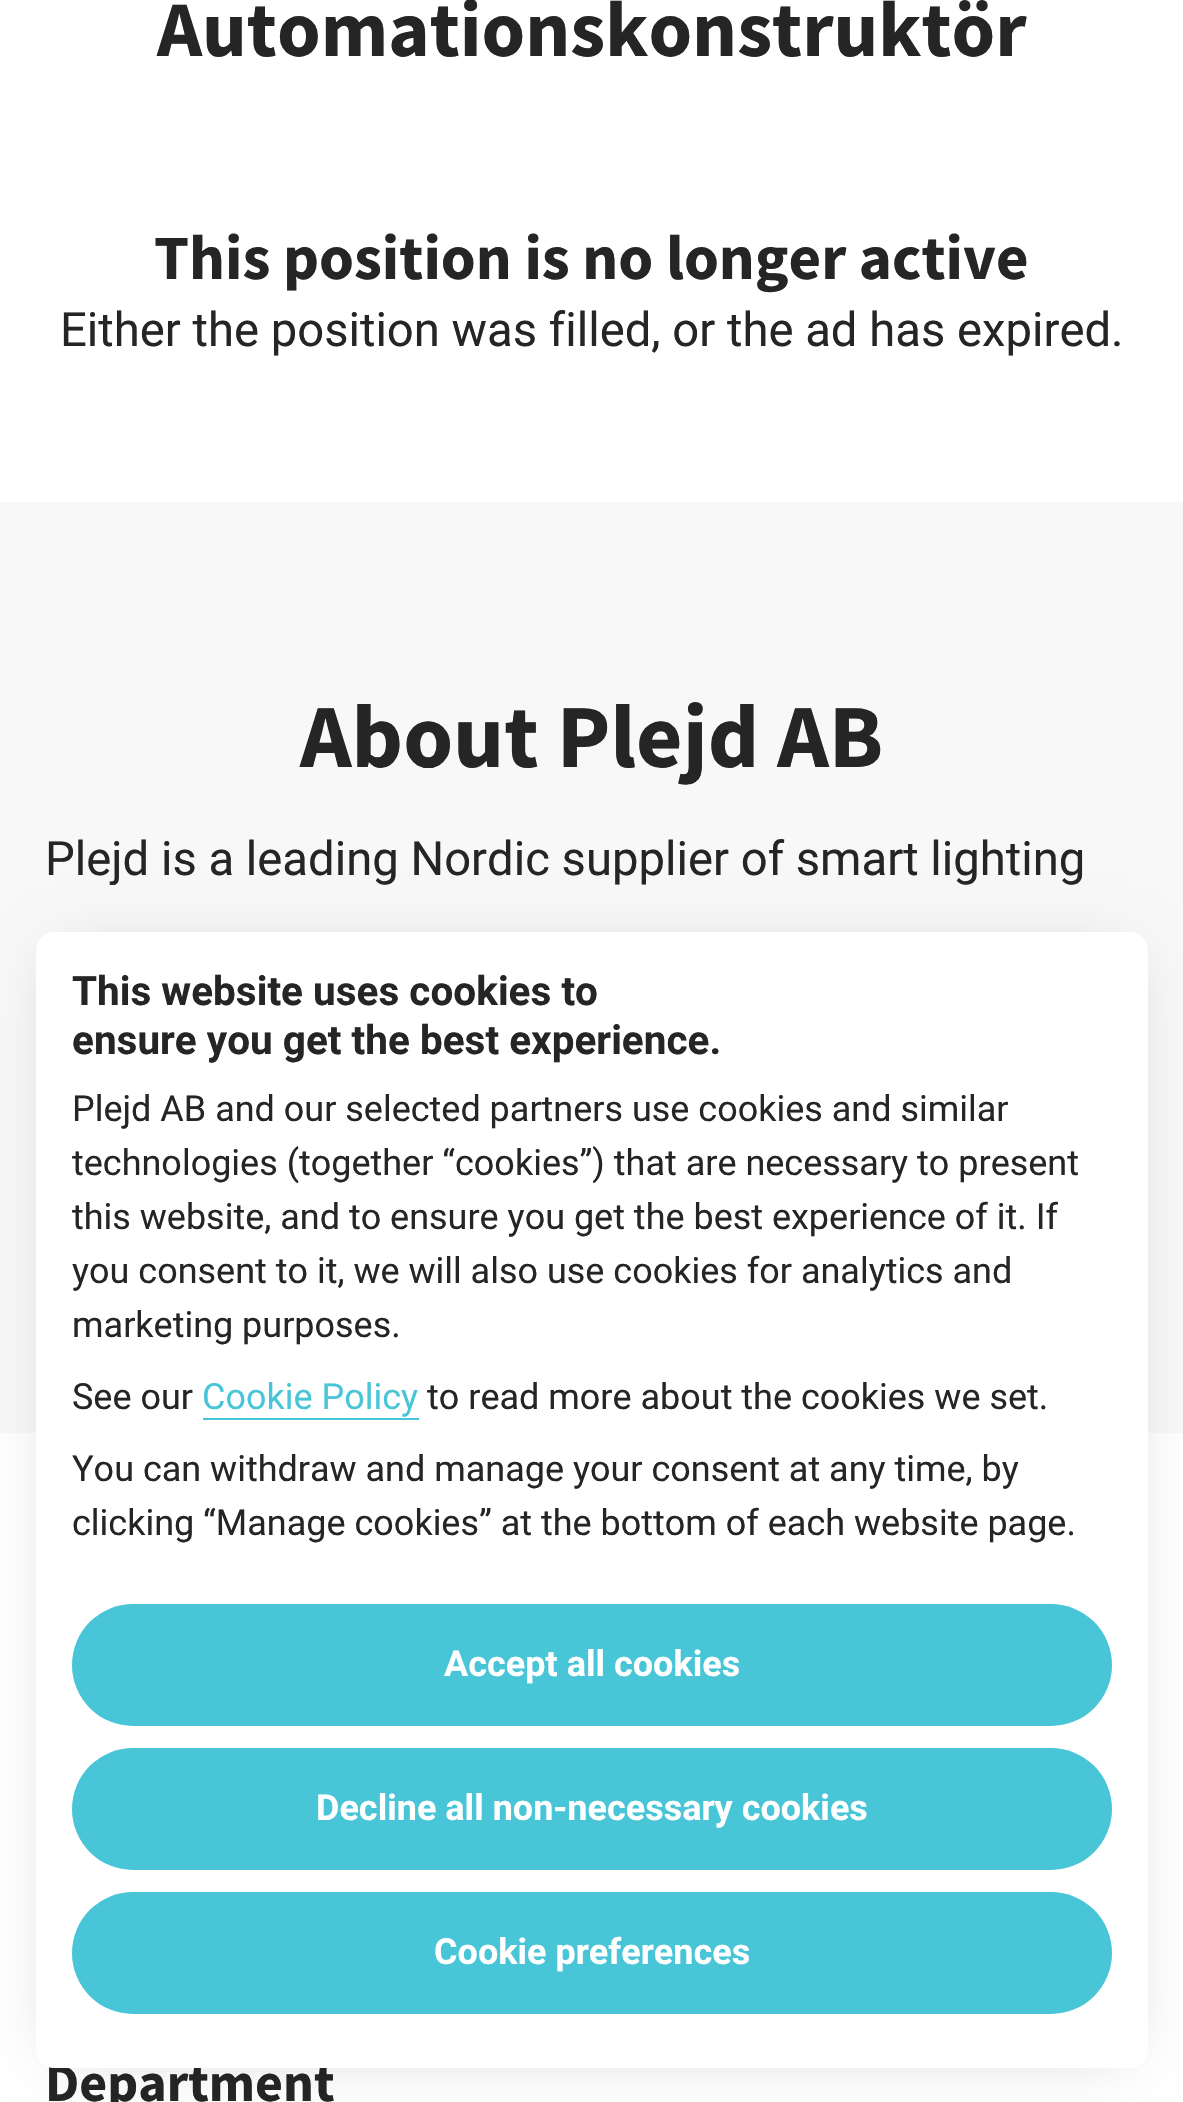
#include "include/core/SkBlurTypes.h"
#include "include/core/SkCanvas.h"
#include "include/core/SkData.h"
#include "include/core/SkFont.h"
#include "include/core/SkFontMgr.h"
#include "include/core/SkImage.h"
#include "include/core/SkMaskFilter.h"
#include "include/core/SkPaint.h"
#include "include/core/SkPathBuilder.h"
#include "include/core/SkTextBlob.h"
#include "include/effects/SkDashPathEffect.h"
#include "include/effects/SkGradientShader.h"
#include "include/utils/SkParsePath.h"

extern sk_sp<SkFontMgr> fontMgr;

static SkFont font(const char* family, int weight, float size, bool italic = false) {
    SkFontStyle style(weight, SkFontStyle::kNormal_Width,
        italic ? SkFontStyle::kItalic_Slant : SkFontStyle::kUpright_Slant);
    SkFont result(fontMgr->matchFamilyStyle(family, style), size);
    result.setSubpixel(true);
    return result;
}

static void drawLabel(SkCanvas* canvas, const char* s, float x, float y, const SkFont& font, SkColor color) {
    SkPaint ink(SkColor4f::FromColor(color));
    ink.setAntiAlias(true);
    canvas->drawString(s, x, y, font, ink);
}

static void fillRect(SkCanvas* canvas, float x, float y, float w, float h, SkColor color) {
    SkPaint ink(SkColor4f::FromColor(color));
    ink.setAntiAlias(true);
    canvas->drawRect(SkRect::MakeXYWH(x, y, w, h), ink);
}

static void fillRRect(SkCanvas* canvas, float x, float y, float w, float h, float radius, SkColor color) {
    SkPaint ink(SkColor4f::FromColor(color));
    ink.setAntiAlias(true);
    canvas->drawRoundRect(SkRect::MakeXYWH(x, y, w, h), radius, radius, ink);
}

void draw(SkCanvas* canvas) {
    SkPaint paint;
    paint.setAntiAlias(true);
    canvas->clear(0xFFFFFFFF);
    SkFont font1 = font("Source Sans Pro", 700, 78.75f);
    drawLabel(canvas, "Automationskonstruktör", 157, 56, font1, 0xFF252525);
    SkFont font2 = font("Source Sans Pro", 700, 63);
    drawLabel(canvas, "This position is no longer active", 154, 279, font2, 0xFF252525);
    SkFont font3 = font("Roboto", 400, 47.25f);
    drawLabel(canvas, "Either the position was filled, or the ad has expired.", 60, 346, font3, 0xFF252525);
    fillRect(canvas, 0, 502, 1183, 931, 0xFFF8F8F8);
    SkFont font4 = font("Source Sans Pro", 700, 90);
    drawLabel(canvas, "About Plejd AB", 300, 767, font4, 0xFF252525);
    drawLabel(canvas, "Plejd is a leading Nordic supplier of smart lighting", 45, 875, font3, 0xFF252525);
    SkFont font5 = font("Source Sans Pro", 700, 54);
    drawLabel(canvas, "Department", 45, 2101, font5, 0xFF252525);
    paint.setColor(0x2E000000);
    paint.setMaskFilter(SkMaskFilter::MakeBlur(kNormal_SkBlurStyle, 30.5f));
    canvas->drawRect(SkRect::MakeXYWH(59, 959, 1066, 1091), paint);
    paint.setMaskFilter(nullptr);
    fillRRect(canvas, 36, 932, 1112, 1136, 18, 0xFFFFFFFF);
    SkFont font6 = font("Roboto", 700, 40.5f);
    drawLabel(canvas, "This website uses cookies to", 72, 1005, font6, 0xFF252525);
    drawLabel(canvas, "ensure you get the best experience.", 72, 1054, font6, 0xFF252525);
    SkFont font7 = font("Roboto", 400, 36);
    drawLabel(canvas, "Plejd AB and our selected partners use cookies and similar", 72, 1121, font7, 0xFF252525);
    drawLabel(canvas, "technologies (together “cookies”) that are necessary to present", 72, 1175, font7, 0xFF252525);
    drawLabel(canvas, "this website, and to ensure you get the best experience of it. If", 72, 1229, font7, 0xFF252525);
    drawLabel(canvas, "you consent to it, we will also use cookies for analytics and", 72, 1283, font7, 0xFF252525);
    drawLabel(canvas, "marketing purposes.", 72, 1337, font7, 0xFF252525);
    drawLabel(canvas, "See our", 72, 1409, font7, 0xFF252525);
    drawLabel(canvas, "Cookie Policy", 202, 1409, font7, 0xFF48C5D6);
    fillRect(canvas, 203, 1418, 216, 2, 0xFF48C5D6);
    drawLabel(canvas, "to read more about the cookies we set.", 427, 1409, font7, 0xFF252525);
    drawLabel(canvas, "You can withdraw and manage your consent at any time, by", 72, 1481, font7, 0xFF252525);
    drawLabel(canvas, "clicking “Manage cookies” at the bottom of each website page.", 72, 1535, font7, 0xFF252525);
    fillRRect(canvas, 72, 1604, 1040, 122, 61, 0xFF48C5D6);
    SkFont font8 = font("Roboto", 700, 36);
    drawLabel(canvas, "Accept all cookies", 444, 1676, font8, 0xFFFFFFFF);
    fillRRect(canvas, 72, 1748, 1040, 122, 61, 0xFF48C5D6);
    drawLabel(canvas, "Decline all non-necessary cookies", 316, 1820, font8, 0xFFFFFFFF);
    fillRRect(canvas, 72, 1892, 1040, 122, 61, 0xFF48C5D6);
    drawLabel(canvas, "Cookie preferences", 434, 1964, font8, 0xFFFFFFFF);
}
